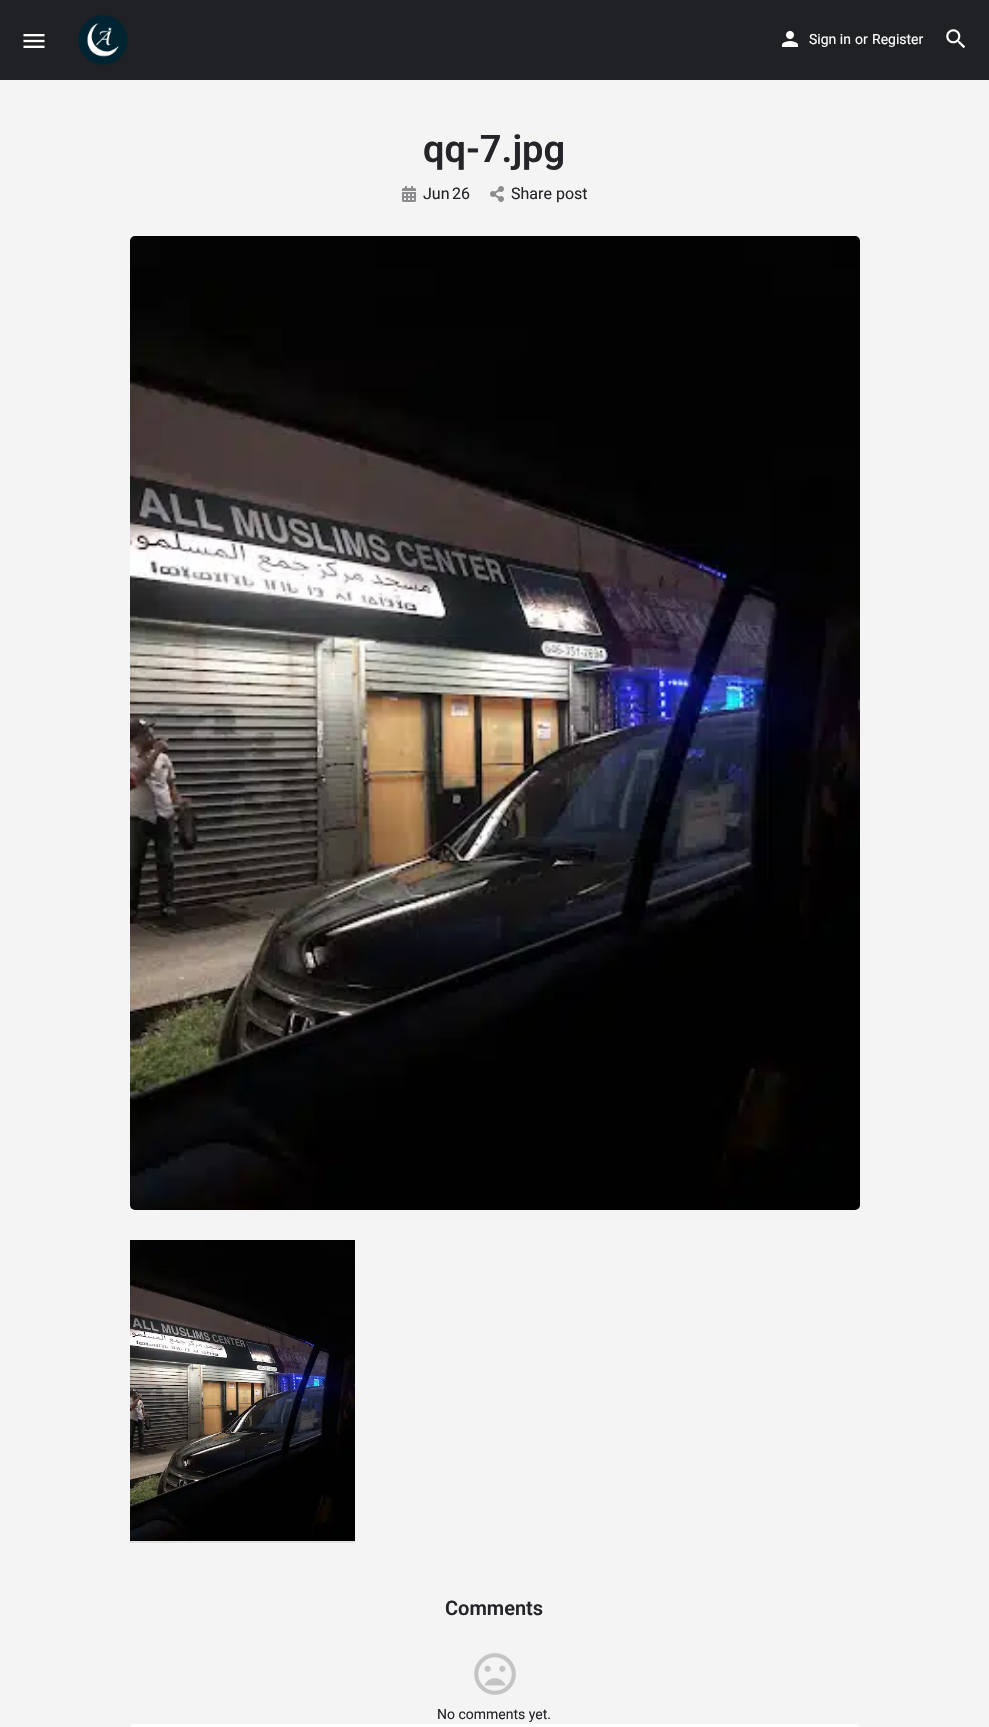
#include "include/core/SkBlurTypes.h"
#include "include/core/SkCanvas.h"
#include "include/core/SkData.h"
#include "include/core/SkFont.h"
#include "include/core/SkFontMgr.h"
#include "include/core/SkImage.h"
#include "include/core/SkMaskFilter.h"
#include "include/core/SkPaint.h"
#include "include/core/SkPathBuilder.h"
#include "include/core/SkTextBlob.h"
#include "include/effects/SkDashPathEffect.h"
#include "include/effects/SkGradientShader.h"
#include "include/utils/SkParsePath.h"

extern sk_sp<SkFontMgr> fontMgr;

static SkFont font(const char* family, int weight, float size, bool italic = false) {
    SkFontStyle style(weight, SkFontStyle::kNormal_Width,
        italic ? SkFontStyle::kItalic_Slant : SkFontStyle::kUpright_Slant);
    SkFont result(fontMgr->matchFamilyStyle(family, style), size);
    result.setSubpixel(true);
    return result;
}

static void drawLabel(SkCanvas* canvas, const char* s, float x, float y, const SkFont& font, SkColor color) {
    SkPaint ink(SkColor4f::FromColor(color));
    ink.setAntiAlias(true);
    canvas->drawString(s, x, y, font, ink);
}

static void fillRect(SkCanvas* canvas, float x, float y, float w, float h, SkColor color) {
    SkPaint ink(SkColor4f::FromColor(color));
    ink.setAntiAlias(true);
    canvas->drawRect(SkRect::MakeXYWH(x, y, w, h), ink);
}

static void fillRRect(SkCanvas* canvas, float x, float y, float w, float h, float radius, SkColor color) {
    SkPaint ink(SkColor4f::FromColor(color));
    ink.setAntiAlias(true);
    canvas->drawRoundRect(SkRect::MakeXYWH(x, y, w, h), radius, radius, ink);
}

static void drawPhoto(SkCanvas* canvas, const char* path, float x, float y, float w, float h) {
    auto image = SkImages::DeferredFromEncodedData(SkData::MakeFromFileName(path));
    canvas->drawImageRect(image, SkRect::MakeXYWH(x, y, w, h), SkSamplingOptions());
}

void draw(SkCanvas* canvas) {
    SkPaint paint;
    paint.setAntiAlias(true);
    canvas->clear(0xFFF4F4F4);
    fillRect(canvas, 0, 0, 989, 80, 0xFF202125);
    drawPhoto(canvas, "assets/img1.png", 23, 34, 22, 14);
    drawPhoto(canvas, "assets/img2.png", 78, 15, 50, 50);
    drawPhoto(canvas, "assets/img3.png", 782, 31, 16, 16);
    SkFont font1 = font("Roboto", 400, 14);
    drawLabel(canvas, "Sign in", 809, 44, font1, 0xFFFFFFFF);
    drawLabel(canvas, "or", 855, 44, font1, 0xFFFFFFFF);
    drawLabel(canvas, "Register", 872, 44, font1, 0xFFFFFFFF);
    drawPhoto(canvas, "assets/img4.png", 946, 29, 20, 20);
    SkFont font2 = font("Roboto", 600, 38);
    drawLabel(canvas, "qq-7.jpg", 423, 162, font2, 0xFF242429);
    drawPhoto(canvas, "assets/img5.png", 402, 186, 14, 16);
    SkFont font3 = font("Roboto", 400, 16);
    drawLabel(canvas, "Jun", 423, 199, font3, 0xFF242429);
    drawLabel(canvas, "26", 452, 199, font3, 0xFF242429);
    drawPhoto(canvas, "assets/img6.png", 490, 186, 14, 16);
    drawLabel(canvas, "Share post", 511, 199, font3, 0xFF242429);
    drawPhoto(canvas, "assets/img7.png", 130, 236, 730, 974);
    drawPhoto(canvas, "assets/img8.png", 130, 1240, 225, 301);
    fillRect(canvas, 130, 1541, 225, 2, 0xFFE0E0E0);
    SkFont font4 = font("Roboto", 600, 20);
    drawLabel(canvas, "Comments", 445, 1615, font4, 0xFF242429);
    drawPhoto(canvas, "assets/img9.png", 474, 1653, 42, 42);
    drawLabel(canvas, "No comments yet.", 437, 1719, font1, 0xFF242429);
    fillRRect(canvas, 130, 1724, 730, 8, 5, 0xFFFFFFFF);
}
